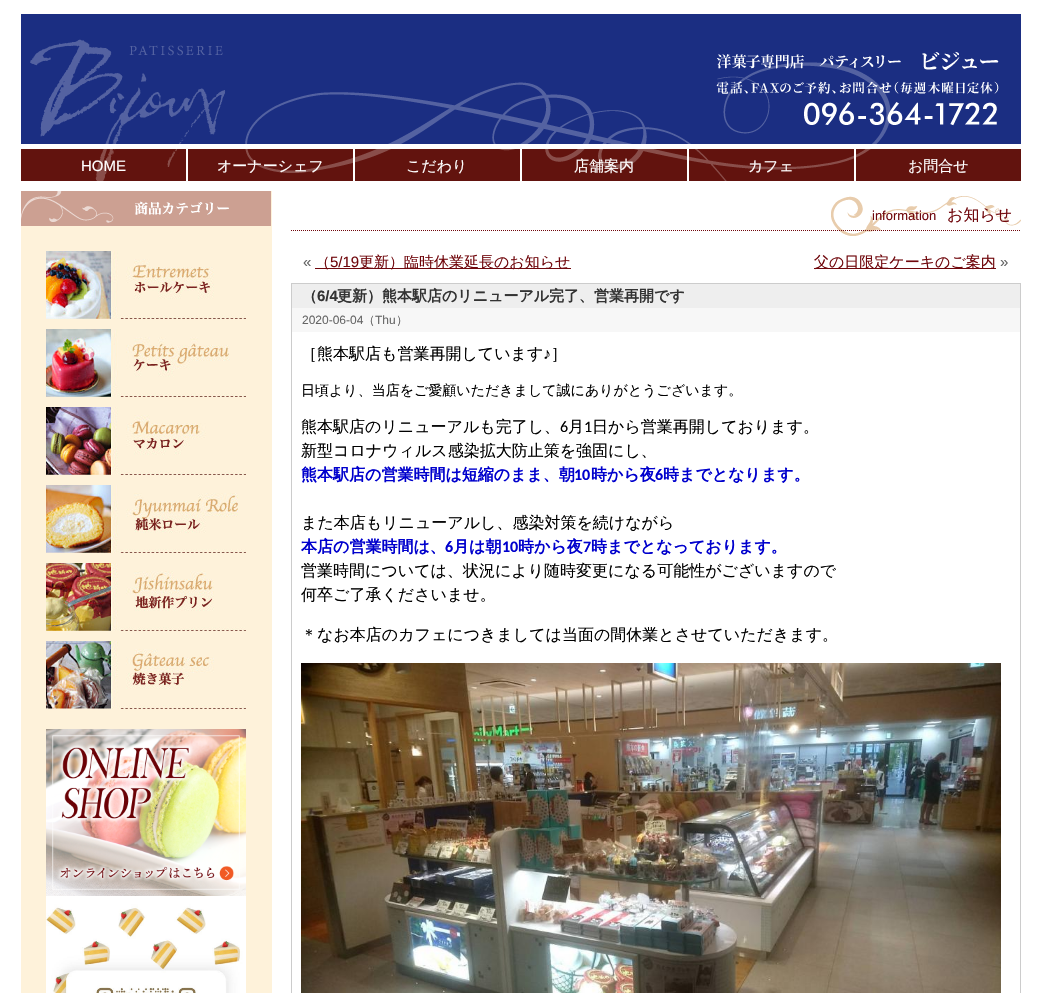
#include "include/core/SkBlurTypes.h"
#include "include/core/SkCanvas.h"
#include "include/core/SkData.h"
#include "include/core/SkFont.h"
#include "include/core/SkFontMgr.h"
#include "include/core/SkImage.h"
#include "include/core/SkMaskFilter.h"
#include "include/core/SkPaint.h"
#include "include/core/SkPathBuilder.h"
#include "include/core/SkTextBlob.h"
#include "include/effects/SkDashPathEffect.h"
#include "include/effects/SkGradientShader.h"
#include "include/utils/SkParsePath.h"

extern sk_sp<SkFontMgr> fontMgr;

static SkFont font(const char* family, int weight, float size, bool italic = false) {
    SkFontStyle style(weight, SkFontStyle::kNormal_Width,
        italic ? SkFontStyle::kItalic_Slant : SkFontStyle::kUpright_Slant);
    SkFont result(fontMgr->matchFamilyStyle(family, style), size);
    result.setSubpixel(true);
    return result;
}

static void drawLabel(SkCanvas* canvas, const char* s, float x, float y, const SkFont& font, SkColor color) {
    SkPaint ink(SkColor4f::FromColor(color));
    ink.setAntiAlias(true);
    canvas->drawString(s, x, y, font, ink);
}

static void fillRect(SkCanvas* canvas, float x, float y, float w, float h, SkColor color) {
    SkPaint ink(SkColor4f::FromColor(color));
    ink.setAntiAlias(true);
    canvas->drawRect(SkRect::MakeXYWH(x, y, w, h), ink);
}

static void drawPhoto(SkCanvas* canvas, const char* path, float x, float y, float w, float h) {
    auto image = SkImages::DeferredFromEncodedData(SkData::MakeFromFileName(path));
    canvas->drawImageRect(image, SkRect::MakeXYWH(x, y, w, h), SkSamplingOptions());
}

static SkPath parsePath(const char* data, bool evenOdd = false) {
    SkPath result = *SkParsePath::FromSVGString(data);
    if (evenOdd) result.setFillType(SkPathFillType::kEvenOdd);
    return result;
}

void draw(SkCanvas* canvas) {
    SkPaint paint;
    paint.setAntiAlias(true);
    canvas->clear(0xFFFFFFFF);
    drawPhoto(canvas, "assets/img1.png", 21, 14, 1000, 130);
    drawPhoto(canvas, "assets/img2.png", 21, 149, 165, 32);
    SkFont font1 = font("Liberation Sans", 400, 15);
    drawLabel(canvas, "HOME", 81, 171, font1, 0xFFFFFFFF);
    drawPhoto(canvas, "assets/img3.png", 188, 149, 165, 32);
    SkFont font2 = font("WenQuanYi Zen Hei", 500, 15);
    drawLabel(canvas, "オーナーシェフ", 217, 171, font2, 0xFFFFFFFF);
    drawPhoto(canvas, "assets/img4.png", 355, 149, 165, 32);
    drawLabel(canvas, "こだわり", 406, 171, font2, 0xFFFFFFFF);
    drawPhoto(canvas, "assets/img5.png", 522, 149, 165, 32);
    drawLabel(canvas, "店舗案内", 574, 171, font2, 0xFFFFFFFF);
    drawPhoto(canvas, "assets/img6.png", 689, 149, 165, 32);
    drawLabel(canvas, "カフェ", 748, 171, font2, 0xFFFFFFFF);
    drawPhoto(canvas, "assets/img7.png", 856, 149, 165, 32);
    drawLabel(canvas, "お問合せ", 908, 171, font2, 0xFFFFFFFF);
    fillRect(canvas, 21, 191, 251, 802, 0xFFFEF2DA);
    drawPhoto(canvas, "assets/img8.png", 21, 191, 250, 35);
    drawPhoto(canvas, "assets/img9.png", 46, 251, 200, 68);
    drawPhoto(canvas, "assets/img10.png", 46, 329, 200, 68);
    drawPhoto(canvas, "assets/img11.png", 46, 407, 200, 68);
    drawPhoto(canvas, "assets/img12.png", 46, 485, 200, 68);
    drawPhoto(canvas, "assets/img13.png", 46, 563, 200, 68);
    drawPhoto(canvas, "assets/img14.png", 46, 641, 200, 68);
    drawPhoto(canvas, "assets/img15.png", 46, 729, 200, 167);
    drawPhoto(canvas, "assets/img16.png", 46, 896, 200, 97);
    drawPhoto(canvas, "assets/img17.png", 831, 196, 190, 40);
    paint.setStroke(true);
    paint.setStrokeWidth(1);
    paint.setColor(0xFF70070C);
    paint.setPathEffect(SkDashPathEffect::Make({{1, 1}}, 0));
    canvas->drawPath(parsePath("M291 230.5H1021"), paint);
    paint.setPathEffect(nullptr);
    SkFont font3 = font("Liberation Sans", 400, 13);
    drawLabel(canvas, "information", 872, 220, font3, 0xFF70070C);
    SkFont font4 = font("WenQuanYi Zen Hei", 500, 16);
    drawLabel(canvas, "お知らせ", 947, 220, font4, 0xFF70070C);
    drawLabel(canvas, "«", 303, 267, font1, 0xFF666666);
    fillRect(canvas, 315, 268, 256, 1, 0xFF70070C);
    drawLabel(canvas, "（", 315, 267, font2, 0xFF70070C);
    drawLabel(canvas, "5/19", 330, 267, font1, 0xFF70070C);
    drawLabel(canvas, "更新）臨時休業延長のお知らせ", 359, 267, font2, 0xFF70070C);
    fillRect(canvas, 814, 268, 182, 1, 0xFF70070C);
    drawLabel(canvas, "父の日限定ケーキのご案内", 814, 267, font2, 0xFF70070C);
    drawLabel(canvas, "»", 1000, 267, font1, 0xFF666666);
    paint.setColor(0xFFCCCCCC);
    canvas->drawRect(SkRect::MakeXYWH(291.5f, 283.5f, 729, 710), paint);
    fillRect(canvas, 292, 284, 728, 24, 0xFFEEEEEE);
    SkFont font5 = font("WenQuanYi Zen Hei", 700, 15);
    drawLabel(canvas, "（", 302, 301, font5, 0xFF333333);
    SkFont font6 = font("Liberation Sans", 700, 15);
    drawLabel(canvas, "6/4", 317, 301, font6, 0xFF333333);
    drawLabel(canvas, "更新）熊本駅店のリニューアル完了、営業再開です", 337, 301, font5, 0xFF333333);
    fillRect(canvas, 292, 308, 728, 24, 0xFFF7F7F7);
    SkFont font7 = font("Liberation Sans", 400, 12);
    drawLabel(canvas, "2020-06-04", 302, 324, font7, 0xFF666666);
    SkFont font8 = font("WenQuanYi Zen Hei", 500, 12);
    drawLabel(canvas, "（", 363, 324, font8, 0xFF666666);
    drawLabel(canvas, "Thu", 375, 324, font7, 0xFF666666);
    drawLabel(canvas, "）", 396, 324, font8, 0xFF666666);
    drawLabel(canvas, "［熊本駅店も営業再開しています", 301, 359, font4, 0xFF000000);
    SkFont font9 = font("Liberation Serif", 400, 16);
    drawLabel(canvas, "♪", 543, 359, font9, 0xFF000000);
    drawLabel(canvas, "］", 551, 359, font4, 0xFF000000);
    SkFont font10 = font("WenQuanYi Zen Hei", 500, 14);
    drawLabel(canvas, "日頃より、当店をご愛顧いただきまして誠にありがとうございます。", 301, 395, font10, 0xFF000000);
    drawLabel(canvas, "熊本駅店のリニューアルも完了し、", 301, 432, font4, 0xFF000000);
    SkFont font11 = font("Carlito", 400, 16);
    drawLabel(canvas, "6", 560, 432, font11, 0xFF000000);
    drawLabel(canvas, "月", 568, 432, font4, 0xFF000000);
    drawLabel(canvas, "1", 584, 432, font11, 0xFF000000);
    drawLabel(canvas, "日から営業再開しております。", 592, 432, font4, 0xFF000000);
    drawLabel(canvas, "新型コロナウィルス感染拡大防止策を強固にし、", 301, 456, font4, 0xFF000000);
    SkFont font12 = font("WenQuanYi Zen Hei", 700, 16);
    drawLabel(canvas, "熊本駅店の営業時間は短縮のまま、朝", 301, 480, font12, 0xFF0000CD);
    SkFont font13 = font("Carlito", 700, 16);
    drawLabel(canvas, "10", 574, 480, font13, 0xFF0000CD);
    drawLabel(canvas, "時から夜", 591, 480, font12, 0xFF0000CD);
    drawLabel(canvas, "6", 655, 480, font13, 0xFF0000CD);
    drawLabel(canvas, "時までとなります。", 663, 480, font12, 0xFF0000CD);
    drawLabel(canvas, "また本店もリニューアルし、感染対策を続けながら", 301, 528, font4, 0xFF000000);
    drawLabel(canvas, "本店の営業時間は、", 301, 552, font12, 0xFF0000CD);
    drawLabel(canvas, "6", 445, 552, font13, 0xFF0000CD);
    drawLabel(canvas, "月は朝", 453, 552, font12, 0xFF0000CD);
    drawLabel(canvas, "10", 502, 552, font13, 0xFF0000CD);
    drawLabel(canvas, "時から夜", 518, 552, font12, 0xFF0000CD);
    drawLabel(canvas, "7", 583, 552, font13, 0xFF0000CD);
    drawLabel(canvas, "時までとなっております。", 591, 552, font12, 0xFF0000CD);
    drawLabel(canvas, "営業時間については、状況により随時変更になる可能性がございますので", 301, 576, font4, 0xFF000000);
    drawLabel(canvas, "何卒ご了承くださいませ。", 301, 600, font4, 0xFF000000);
    drawLabel(canvas, "＊なお本店のカフェにつきましては当面の間休業とさせていただきます。", 301, 640, font4, 0xFF000000);
    drawPhoto(canvas, "assets/img18.png", 301, 663, 700, 330);
}
